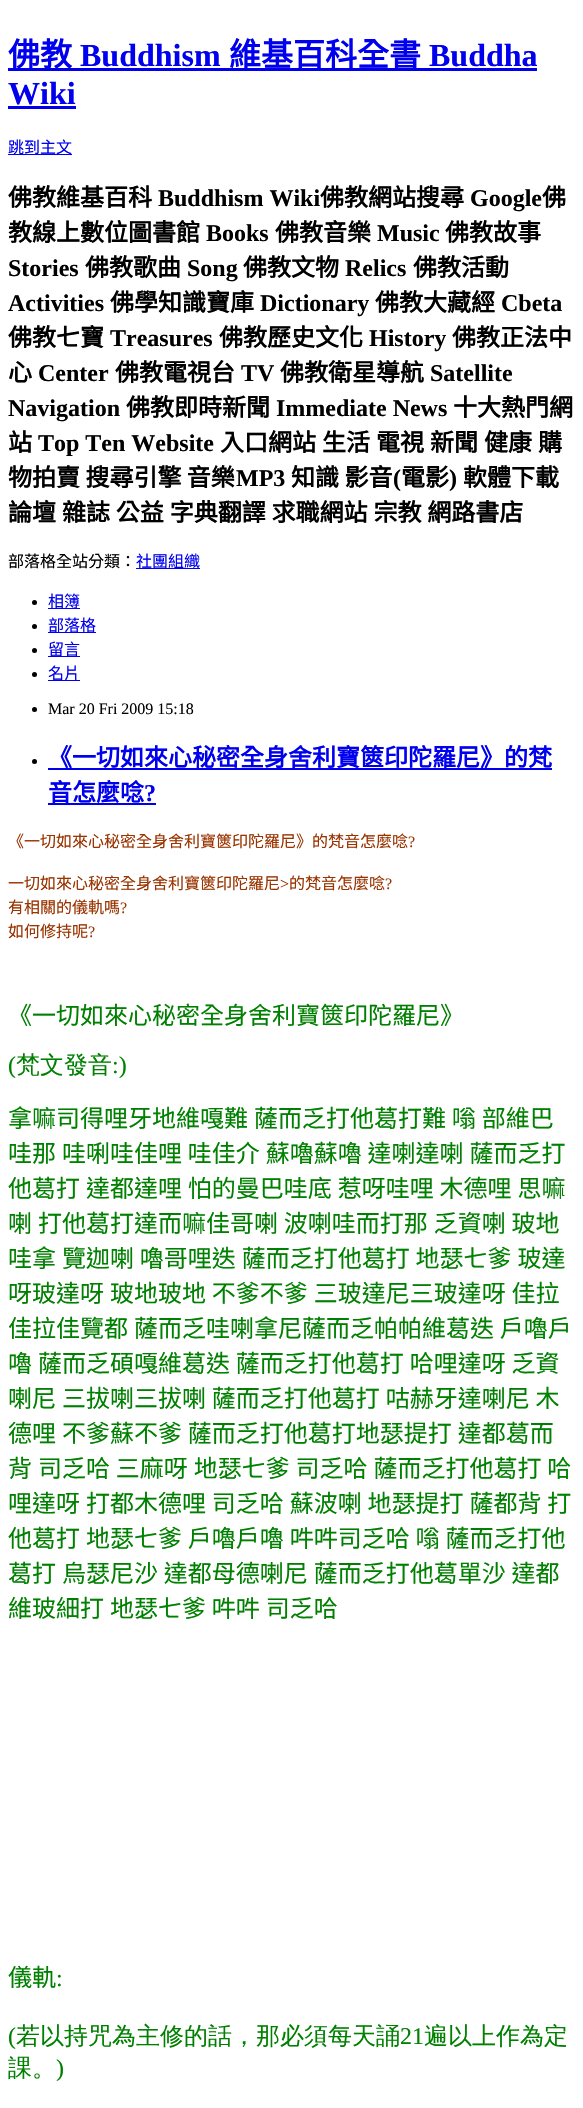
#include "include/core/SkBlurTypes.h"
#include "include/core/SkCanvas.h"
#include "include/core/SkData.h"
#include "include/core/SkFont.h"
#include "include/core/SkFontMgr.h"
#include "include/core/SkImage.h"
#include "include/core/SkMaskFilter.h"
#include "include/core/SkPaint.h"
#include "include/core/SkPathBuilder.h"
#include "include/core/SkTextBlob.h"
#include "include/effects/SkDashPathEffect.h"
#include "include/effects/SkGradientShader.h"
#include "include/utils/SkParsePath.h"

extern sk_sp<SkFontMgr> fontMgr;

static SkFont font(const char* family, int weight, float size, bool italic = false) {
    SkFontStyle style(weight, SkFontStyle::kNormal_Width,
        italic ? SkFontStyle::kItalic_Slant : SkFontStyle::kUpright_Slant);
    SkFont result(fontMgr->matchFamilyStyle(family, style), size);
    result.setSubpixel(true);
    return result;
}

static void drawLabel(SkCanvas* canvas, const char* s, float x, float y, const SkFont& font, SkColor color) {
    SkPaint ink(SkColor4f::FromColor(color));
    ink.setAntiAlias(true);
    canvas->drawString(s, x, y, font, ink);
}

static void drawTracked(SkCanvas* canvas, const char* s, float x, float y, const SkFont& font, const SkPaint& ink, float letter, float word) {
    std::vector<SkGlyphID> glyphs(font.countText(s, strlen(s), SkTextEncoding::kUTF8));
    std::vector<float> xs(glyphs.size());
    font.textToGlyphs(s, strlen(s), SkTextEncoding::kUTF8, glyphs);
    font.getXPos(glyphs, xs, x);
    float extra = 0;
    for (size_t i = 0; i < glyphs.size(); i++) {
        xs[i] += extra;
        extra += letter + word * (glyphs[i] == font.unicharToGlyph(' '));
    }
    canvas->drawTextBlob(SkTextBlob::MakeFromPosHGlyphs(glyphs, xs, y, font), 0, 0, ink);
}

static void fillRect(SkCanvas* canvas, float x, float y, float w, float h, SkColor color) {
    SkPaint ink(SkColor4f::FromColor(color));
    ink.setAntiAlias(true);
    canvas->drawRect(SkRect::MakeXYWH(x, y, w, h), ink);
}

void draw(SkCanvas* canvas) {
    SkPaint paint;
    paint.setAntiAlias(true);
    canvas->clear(0xFFFFFFFF);
    fillRect(canvas, 8, 68, 529, 3, 0xFF0000EE);
    SkFont font1 = font("Noto Sans CJK TC", 700, 32);
    drawLabel(canvas, "佛教", 8, 66, font1, 0xFF0000EE);
    SkFont font2 = font("Liberation Serif", 700, 32);
    drawLabel(canvas, "Buddhism", 80, 66, font2, 0xFF0000EE);
    drawLabel(canvas, "維基百科全書", 229, 66, font1, 0xFF0000EE);
    drawLabel(canvas, "Buddha", 429, 66, font2, 0xFF0000EE);
    drawLabel(canvas, "Wiki", 8, 104, font2, 0xFF0000EE);
    fillRect(canvas, 8, 106, 68, 3, 0xFF0000EE);
    fillRect(canvas, 8, 154, 64, 1, 0xFF0000EE);
    SkFont font3 = font("Noto Sans CJK TC", 400, 16);
    drawLabel(canvas, "跳到主文", 8, 153, font3, 0xFF0000EE);
    SkFont font4 = font("Noto Sans CJK TC", 700, 24);
    drawLabel(canvas, "佛教維基百科", 8, 206, font4, 0xFF000000);
    SkFont font5 = font("Liberation Serif", 700, 24);
    drawLabel(canvas, "Buddhism Wiki", 158, 206, font5, 0xFF000000);
    drawLabel(canvas, "佛教網站搜尋", 320, 206, font4, 0xFF000000);
    drawLabel(canvas, "Google", 470, 206, font5, 0xFF000000);
    drawLabel(canvas, "佛", 542, 206, font4, 0xFF000000);
    drawLabel(canvas, "教線上數位圖書館", 8, 241, font4, 0xFF000000);
    drawLabel(canvas, "Books", 206, 241, font5, 0xFF000000);
    drawLabel(canvas, "佛教音樂", 275, 241, font4, 0xFF000000);
    drawLabel(canvas, "Music", 377, 241, font5, 0xFF000000);
    drawLabel(canvas, "佛教故事", 445, 241, font4, 0xFF000000);
    drawLabel(canvas, "Stories", 8, 276, font5, 0xFF000000);
    drawLabel(canvas, "佛教歌曲", 85, 276, font4, 0xFF000000);
    drawLabel(canvas, "Song", 187, 276, font5, 0xFF000000);
    drawLabel(canvas, "佛教文物", 243, 276, font4, 0xFF000000);
    drawLabel(canvas, "Relics", 345, 276, font5, 0xFF000000);
    drawLabel(canvas, "佛教活動", 413, 276, font4, 0xFF000000);
    drawLabel(canvas, "Activities", 8, 311, font5, 0xFF000000);
    drawLabel(canvas, "佛學知識寶庫", 110, 311, font4, 0xFF000000);
    drawLabel(canvas, "Dictionary", 260, 311, font5, 0xFF000000);
    drawLabel(canvas, "佛教大藏經", 375, 311, font4, 0xFF000000);
    drawLabel(canvas, "Cbeta", 501, 311, font5, 0xFF000000);
    drawLabel(canvas, "佛教七寶", 8, 346, font4, 0xFF000000);
    drawLabel(canvas, "Treasures", 110, 346, font5, 0xFF000000);
    drawLabel(canvas, "佛教歷史文化", 219, 346, font4, 0xFF000000);
    drawLabel(canvas, "History", 369, 346, font5, 0xFF000000);
    drawLabel(canvas, "佛教正法中", 452, 346, font4, 0xFF000000);
    drawLabel(canvas, "心", 8, 381, font4, 0xFF000000);
    drawLabel(canvas, "Center", 38, 381, font5, 0xFF000000);
    drawLabel(canvas, "佛教電視台", 115, 381, font4, 0xFF000000);
    drawLabel(canvas, "TV", 241, 381, font5, 0xFF000000);
    drawLabel(canvas, "佛教衛星導航", 280, 381, font4, 0xFF000000);
    drawLabel(canvas, "Satellite", 430, 381, font5, 0xFF000000);
    drawLabel(canvas, "Navigation", 8, 416, font5, 0xFF000000);
    drawLabel(canvas, "佛教即時新聞", 126, 416, font4, 0xFF000000);
    drawLabel(canvas, "Immediate News", 276, 416, font5, 0xFF000000);
    drawLabel(canvas, "十大熱門網", 453, 416, font4, 0xFF000000);
    drawLabel(canvas, "站", 8, 451, font4, 0xFF000000);
    drawLabel(canvas, "Top Ten Website", 38, 451, font5, 0xFF000000);
    drawLabel(canvas, "入口網站", 220, 451, font4, 0xFF000000);
    drawLabel(canvas, "生活", 322, 451, font4, 0xFF000000);
    drawLabel(canvas, "電視", 376, 451, font4, 0xFF000000);
    drawLabel(canvas, "新聞", 430, 451, font4, 0xFF000000);
    drawLabel(canvas, "健康", 484, 451, font4, 0xFF000000);
    drawLabel(canvas, "購", 538, 451, font4, 0xFF000000);
    drawLabel(canvas, "物拍賣 搜尋引擎 音樂", 8, 486, font4, 0xFF000000);
    drawLabel(canvas, "MP3", 236, 486, font5, 0xFF000000);
    drawLabel(canvas, "知識 影音", 291, 486, font4, 0xFF000000);
    drawLabel(canvas, "(", 393, 486, font5, 0xFF000000);
    drawLabel(canvas, "電影", 401, 486, font4, 0xFF000000);
    drawLabel(canvas, ")", 449, 486, font5, 0xFF000000);
    drawLabel(canvas, "軟體下載", 463, 486, font4, 0xFF000000);
    paint.setColor(0xFF000000);
    drawTracked(canvas, "論壇 雜誌 公益 字典翻譯 求職網站 宗教 網路書店", 8, 521, font4, paint, 0, 0.5f);
    drawLabel(canvas, "部落格全站分類：", 8, 567, font3, 0xFF000000);
    fillRect(canvas, 136, 568, 64, 1, 0xFF0000EE);
    drawLabel(canvas, "社團組織", 136, 567, font3, 0xFF0000EE);
    canvas->drawCircle(34.5f, 602.5f, 2.5f, paint);
    fillRect(canvas, 48, 608, 32, 1, 0xFF0000EE);
    drawLabel(canvas, "相簿", 48, 607, font3, 0xFF0000EE);
    canvas->drawCircle(34.5f, 626.5f, 2.5f, paint);
    fillRect(canvas, 48, 632, 48, 1, 0xFF0000EE);
    drawLabel(canvas, "部落格", 48, 631, font3, 0xFF0000EE);
    canvas->drawCircle(34.5f, 650.5f, 2.5f, paint);
    fillRect(canvas, 48, 656, 32, 1, 0xFF0000EE);
    drawLabel(canvas, "留言", 48, 655, font3, 0xFF0000EE);
    canvas->drawCircle(34.5f, 674.5f, 2.5f, paint);
    fillRect(canvas, 48, 680, 32, 1, 0xFF0000EE);
    drawLabel(canvas, "名片", 48, 679, font3, 0xFF0000EE);
    canvas->drawCircle(34.5f, 709.5f, 2.5f, paint);
    SkFont font6 = font("Liberation Serif", 400, 16);
    drawLabel(canvas, "Mar 20 Fri 2009 15:18", 48, 714, font6, 0xFF000000);
    canvas->drawCircle(34.5f, 761.5f, 2.5f, paint);
    fillRect(canvas, 48, 768, 504, 2, 0xFF0000EE);
    drawLabel(canvas, "《一切如來心秘密全身舍利寶篋印陀羅尼》的梵", 48, 766, font4, 0xFF0000EE);
    fillRect(canvas, 48, 803, 108, 2, 0xFF0000EE);
    drawLabel(canvas, "音怎麼唸", 48, 801, font4, 0xFF0000EE);
    drawLabel(canvas, "?", 144, 801, font5, 0xFF0000EE);
    drawLabel(canvas, "《一切如來心秘密全身舍利寶篋印陀羅尼》的梵音怎麼唸", 8, 847, font3, 0xFF993300);
    drawLabel(canvas, "?", 408, 847, font6, 0xFF993300);
    drawLabel(canvas, "一切如來心秘密全身舍利寶篋印陀羅尼", 8, 889, font3, 0xFF993300);
    drawLabel(canvas, ">", 280, 889, font6, 0xFF993300);
    drawLabel(canvas, "的梵音怎麼唸", 289, 889, font3, 0xFF993300);
    drawLabel(canvas, "?", 385, 889, font6, 0xFF993300);
    drawLabel(canvas, "有相關的儀軌嗎", 8, 913, font3, 0xFF993300);
    drawLabel(canvas, "?", 120, 913, font6, 0xFF993300);
    drawLabel(canvas, "如何修持呢", 8, 937, font3, 0xFF993300);
    drawLabel(canvas, "?", 88, 937, font6, 0xFF993300);
    SkFont font7 = font("Noto Sans CJK TC", 400, 24);
    drawLabel(canvas, "《一切如來心秘密全身舍利寶篋印陀羅尼》", 8, 1024, font7, 0xFF008000);
    SkFont font8 = font("Liberation Serif", 400, 24);
    drawLabel(canvas, "(", 8, 1073, font8, 0xFF008000);
    SkFont font9 = font("WenQuanYi Zen Hei", 500, 24);
    drawLabel(canvas, "梵文發音", 16, 1073, font9, 0xFF008000);
    drawLabel(canvas, ":)", 112, 1073, font8, 0xFF008000);
    paint.setColor(0xFF008000);
    drawTracked(canvas, "拿嘛司得哩牙地維嘎難 薩而乏打他葛打難 嗡 部維巴", 8, 1127, font7, paint, 0, 0.5f);
    drawTracked(canvas, "哇那 哇唎哇佳哩 哇佳介 蘇嚕蘇嚕 達喇達喇 薩而乏打", 8, 1162, font7, paint, 0, 0.5f);
    drawTracked(canvas, "他葛打 達都達哩 怕的曼巴哇底 惹呀哇哩 木德哩 思嘛", 8, 1197, font7, paint, 0, 0.5f);
    drawTracked(canvas, "喇 打他葛打達而嘛佳哥喇 波喇哇而打那 乏資喇 玻地", 8, 1232, font7, paint, 0, 0.5f);
    drawTracked(canvas, "哇拿 覽迦喇 嚕哥哩迭 薩而乏打他葛打 地瑟七爹 玻達", 8, 1267, font7, paint, 0, 0.5f);
    drawTracked(canvas, "呀玻達呀 玻地玻地 不爹不爹 三玻達尼三玻達呀 佳拉", 8, 1302, font7, paint, 0, 0.5f);
    drawTracked(canvas, "佳拉佳覽都 薩而乏哇喇拿尼薩而乏帕帕維葛迭 戶嚕戶", 8, 1337, font7, paint, 0, 0.5f);
    drawTracked(canvas, "嚕 薩而乏碩嘎維葛迭 薩而乏打他葛打 哈哩達呀 乏資", 8, 1372, font7, paint, 0, 0.5f);
    drawTracked(canvas, "喇尼 三拔喇三拔喇 薩而乏打他葛打 咕赫牙達喇尼 木", 8, 1407, font7, paint, 0, 0.5f);
    drawTracked(canvas, "德哩 不爹蘇不爹 薩而乏打他葛打地瑟提打 達都葛而", 8, 1442, font7, paint, 0, 0.5f);
    drawTracked(canvas, "背 司乏哈 三麻呀 地瑟七爹 司乏哈 薩而乏打他葛打 哈", 8, 1477, font7, paint, 0, 0.5f);
    drawTracked(canvas, "哩達呀 打都木德哩 司乏哈 蘇波喇 地瑟提打 薩都背 打", 8, 1512, font7, paint, 0, 0.5f);
    drawTracked(canvas, "他葛打 地瑟七爹 戶嚕戶嚕 吽吽司乏哈 嗡 薩而乏打他", 8, 1547, font7, paint, 0, 0.5f);
    drawTracked(canvas, "葛打 烏瑟尼沙 達都母德喇尼 薩而乏打他葛單沙 達都", 8, 1582, font7, paint, 0, 0.5f);
    drawTracked(canvas, "維玻細打 地瑟七爹 吽吽 司乏哈", 8, 1617, font7, paint, 0, 0.5f);
    drawLabel(canvas, "儀軌", 8, 1986, font7, 0xFF008000);
    drawLabel(canvas, ":", 56, 1986, font8, 0xFF008000);
    drawLabel(canvas, "(", 8, 2044, font8, 0xFF008000);
    drawLabel(canvas, "若以持咒為主修的話，那必須每天誦", 16, 2044, font9, 0xFF008000);
    drawLabel(canvas, "21", 400, 2044, font8, 0xFF008000);
    drawLabel(canvas, "遍以上作為定", 424, 2044, font9, 0xFF008000);
    drawLabel(canvas, "課。", 8, 2076, font9, 0xFF008000);
    drawLabel(canvas, ")", 56, 2076, font8, 0xFF008000);
}
